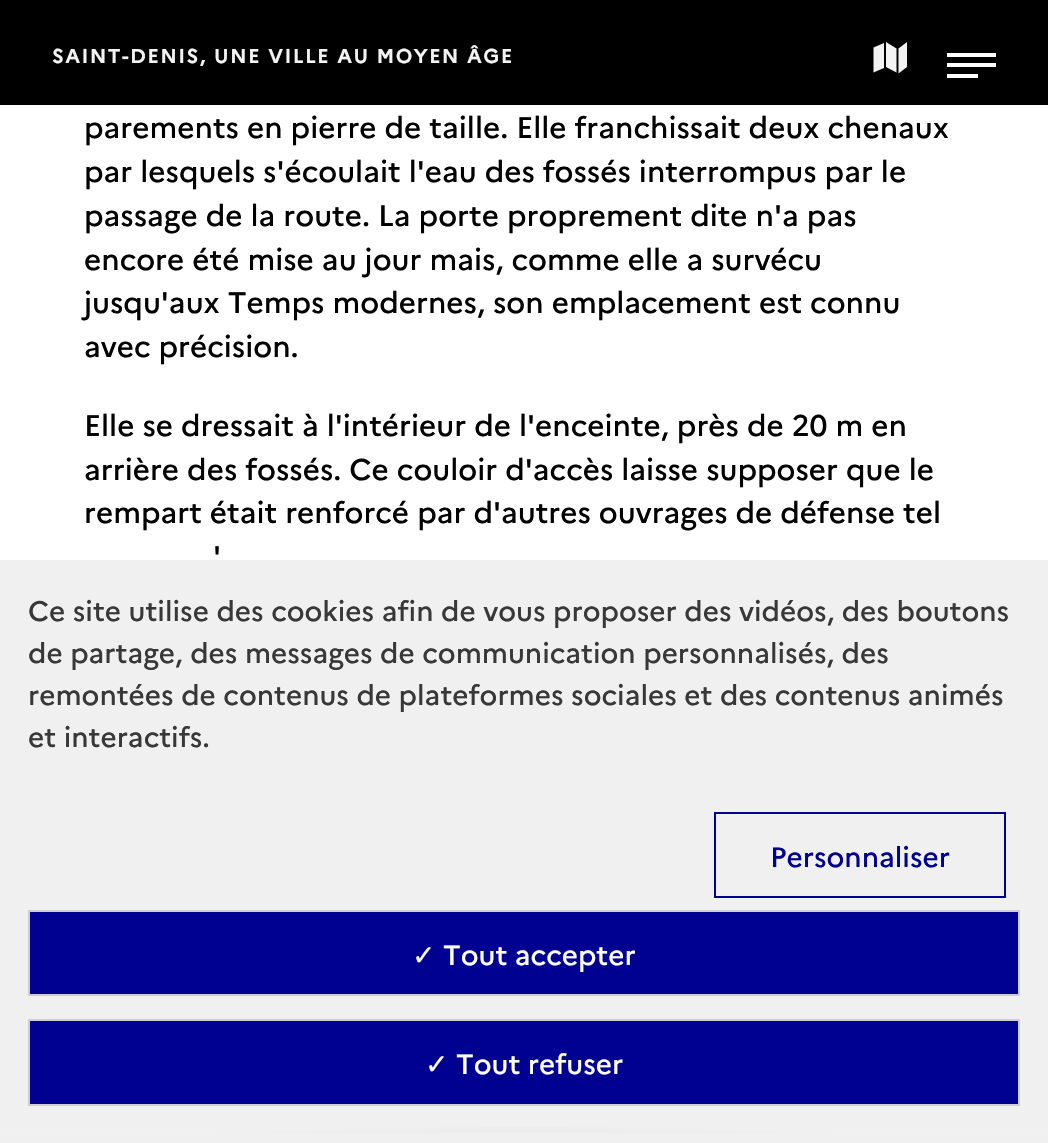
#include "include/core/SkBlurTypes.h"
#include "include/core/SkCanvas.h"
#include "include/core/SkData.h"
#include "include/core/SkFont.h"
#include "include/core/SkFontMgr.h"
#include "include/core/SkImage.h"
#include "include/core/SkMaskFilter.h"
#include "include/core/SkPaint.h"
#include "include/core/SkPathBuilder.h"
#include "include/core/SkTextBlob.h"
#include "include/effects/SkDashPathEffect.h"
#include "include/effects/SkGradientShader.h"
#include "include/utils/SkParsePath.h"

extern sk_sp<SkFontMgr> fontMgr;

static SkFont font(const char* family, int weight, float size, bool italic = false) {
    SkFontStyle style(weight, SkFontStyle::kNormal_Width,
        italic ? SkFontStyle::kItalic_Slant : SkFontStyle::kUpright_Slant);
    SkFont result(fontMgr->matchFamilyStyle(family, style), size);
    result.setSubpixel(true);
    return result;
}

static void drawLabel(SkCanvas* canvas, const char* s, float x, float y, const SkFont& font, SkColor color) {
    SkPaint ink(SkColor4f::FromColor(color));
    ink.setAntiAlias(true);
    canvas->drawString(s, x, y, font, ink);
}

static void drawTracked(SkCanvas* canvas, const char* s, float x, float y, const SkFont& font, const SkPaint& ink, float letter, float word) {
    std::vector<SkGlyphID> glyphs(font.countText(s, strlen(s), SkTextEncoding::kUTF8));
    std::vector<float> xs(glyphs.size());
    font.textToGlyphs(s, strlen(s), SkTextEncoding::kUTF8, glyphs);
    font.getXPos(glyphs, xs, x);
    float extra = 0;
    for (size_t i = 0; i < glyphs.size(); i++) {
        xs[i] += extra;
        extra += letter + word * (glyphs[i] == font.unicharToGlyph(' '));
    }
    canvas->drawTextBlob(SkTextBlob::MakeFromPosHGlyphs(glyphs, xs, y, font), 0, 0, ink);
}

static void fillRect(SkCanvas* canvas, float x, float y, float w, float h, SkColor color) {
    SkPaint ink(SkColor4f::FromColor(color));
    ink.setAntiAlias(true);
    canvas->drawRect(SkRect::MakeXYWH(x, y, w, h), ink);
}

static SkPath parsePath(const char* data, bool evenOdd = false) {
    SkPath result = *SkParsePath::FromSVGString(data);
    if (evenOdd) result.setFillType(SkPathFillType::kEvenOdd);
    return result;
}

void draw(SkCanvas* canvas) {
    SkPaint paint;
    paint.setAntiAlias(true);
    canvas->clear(0xFFFFFFFF);
    fillRect(canvas, 0, 0, 1048, 105, 0xFF000000);
    SkFont font1 = font("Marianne", 700, 19.25f);
    paint.setColor(0xFFF3F3F3);
    drawTracked(canvas, "SAINT-DENIS, UNE VILLE AU MOYEN ÂGE", 52, 63, font1, paint, 1.95f, 0);
    canvas->drawPath(parsePath("M898.5 73.5V48.5L907 42V67ZM886 42L896.5 48.5V72.5L886 67ZM873.5 47.5L884 43V68L873.5 72.5Z"), paint);
    fillRect(canvas, 947, 63, 49, 4, 0xFFFFFFFF);
    fillRect(canvas, 947, 53, 49, 4, 0xFFFFFFFF);
    fillRect(canvas, 947, 74, 31, 4, 0xFFFFFFFF);
    SkFont font2 = font("Marianne", 500, 29.75f);
    drawLabel(canvas, "parements en pierre de taille. Elle franchissait deux chenaux", 84, 138, font2, 0xFF000000);
    drawLabel(canvas, "par lesquels s'écoulait l'eau des fossés interrompus par le", 84, 182, font2, 0xFF000000);
    drawLabel(canvas, "passage de la route. La porte proprement dite n'a pas", 84, 226, font2, 0xFF000000);
    drawLabel(canvas, "encore été mise au jour mais, comme elle a survécu", 84, 270, font2, 0xFF000000);
    drawLabel(canvas, "jusqu'aux Temps modernes, son emplacement est connu", 84, 313, font2, 0xFF000000);
    drawLabel(canvas, "avec précision.", 84, 357, font2, 0xFF000000);
    drawLabel(canvas, "Elle se dressait à l'intérieur de l'enceinte, près de 20 m en", 84, 436, font2, 0xFF000000);
    drawLabel(canvas, "arrière des fossés. Ce couloir d'accès laisse supposer que le", 84, 480, font2, 0xFF000000);
    drawLabel(canvas, "rempart était renforcé par d'autres ouvrages de défense tel", 84, 523, font2, 0xFF000000);
    drawLabel(canvas, "'", 213, 567, font2, 0xFF000000);
    fillRect(canvas, 0, 571, 1048, 556, 0xFFF0F0F0);
    {
        const SkColor colors[] = {0xFF898989, 0xFFF0F0F0};
        const float stops[] = {0, 1};
        SkMatrix m = SkMatrix::Translate(524, 1145).preScale(524, 18);
        paint.setShader(SkGradientShader::MakeRadial({0, 0}, 1, colors, stops, 2, SkTileMode::kClamp, 0, &m));
        paint.setAlpha(255);
    }
    canvas->drawRect(SkRect::MakeXYWH(0, 1127, 1048, 7), paint);
    {
        const SkColor colors[] = {0x00F0F0F0, 0xFFF0F0F0};
        const float stops[] = {0, 0.66f};
        const SkPoint ends[] = {{524, 1113}, {524, 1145}};
        paint.setShader(SkGradientShader::MakeLinear(ends, colors, stops, 2, SkTileMode::kClamp));
        paint.setAlpha(255);
    }
    canvas->drawRect(SkRect::MakeXYWH(0, 1128, 1048, 15), paint);
    {
        const SkColor colors[] = {0xFFF0F0F0, 0x00F0F0F0};
        const float stops[] = {0.33f, 1};
        const SkPoint ends[] = {{524, 560}, {524, 592}};
        paint.setShader(SkGradientShader::MakeLinear(ends, colors, stops, 2, SkTileMode::kClamp));
        paint.setAlpha(255);
    }
    canvas->drawRect(SkRect::MakeXYWH(0, 560, 1048, 11), paint);
    SkFont font3 = font("Marianne", 500, 28);
    drawLabel(canvas, "Ce site utilise des cookies afin de vous proposer des vidéos, des boutons", 28, 621, font3, 0xFF383838);
    drawLabel(canvas, "de partage, des messages de communication personnalisés, des", 28, 663, font3, 0xFF383838);
    drawLabel(canvas, "remontées de contenus de plateformes sociales et des contenus animés", 28, 705, font3, 0xFF383838);
    drawLabel(canvas, "et interactifs.", 28, 747, font3, 0xFF383838);
    paint.setStroke(true);
    paint.setStrokeWidth(2);
    paint.setShader(nullptr);
    paint.setColor(0xFF000091);
    canvas->drawRect(SkRect::MakeXYWH(715, 813, 290, 84), paint);
    drawLabel(canvas, "Personnaliser", 770, 867, font3, 0xFF000091);
    paint.setStroke(false);
    canvas->drawRect(SkRect::MakeXYWH(29, 911, 990, 84), paint);
    paint.setStroke(true);
    paint.setColor(0xFFCECECE);
    canvas->drawRect(SkRect::MakeXYWH(29, 911, 990, 84), paint);
    SkFont font4 = font("DejaVu Sans", 400, 28);
    drawLabel(canvas, "✓", 412, 965, font4, 0xFFFFFFFF);
    drawLabel(canvas, "Tout accepter", 443, 965, font3, 0xFFFFFFFF);
    paint.setStroke(false);
    paint.setColor(0xFF000091);
    canvas->drawRect(SkRect::MakeXYWH(29, 1020, 990, 85), paint);
    paint.setStroke(true);
    paint.setColor(0xFFCECECE);
    canvas->drawRect(SkRect::MakeXYWH(29, 1020, 990, 85), paint);
    drawLabel(canvas, "✓", 425, 1074, font4, 0xFFFFFFFF);
    drawLabel(canvas, "Tout refuser", 456, 1074, font3, 0xFFFFFFFF);
}
